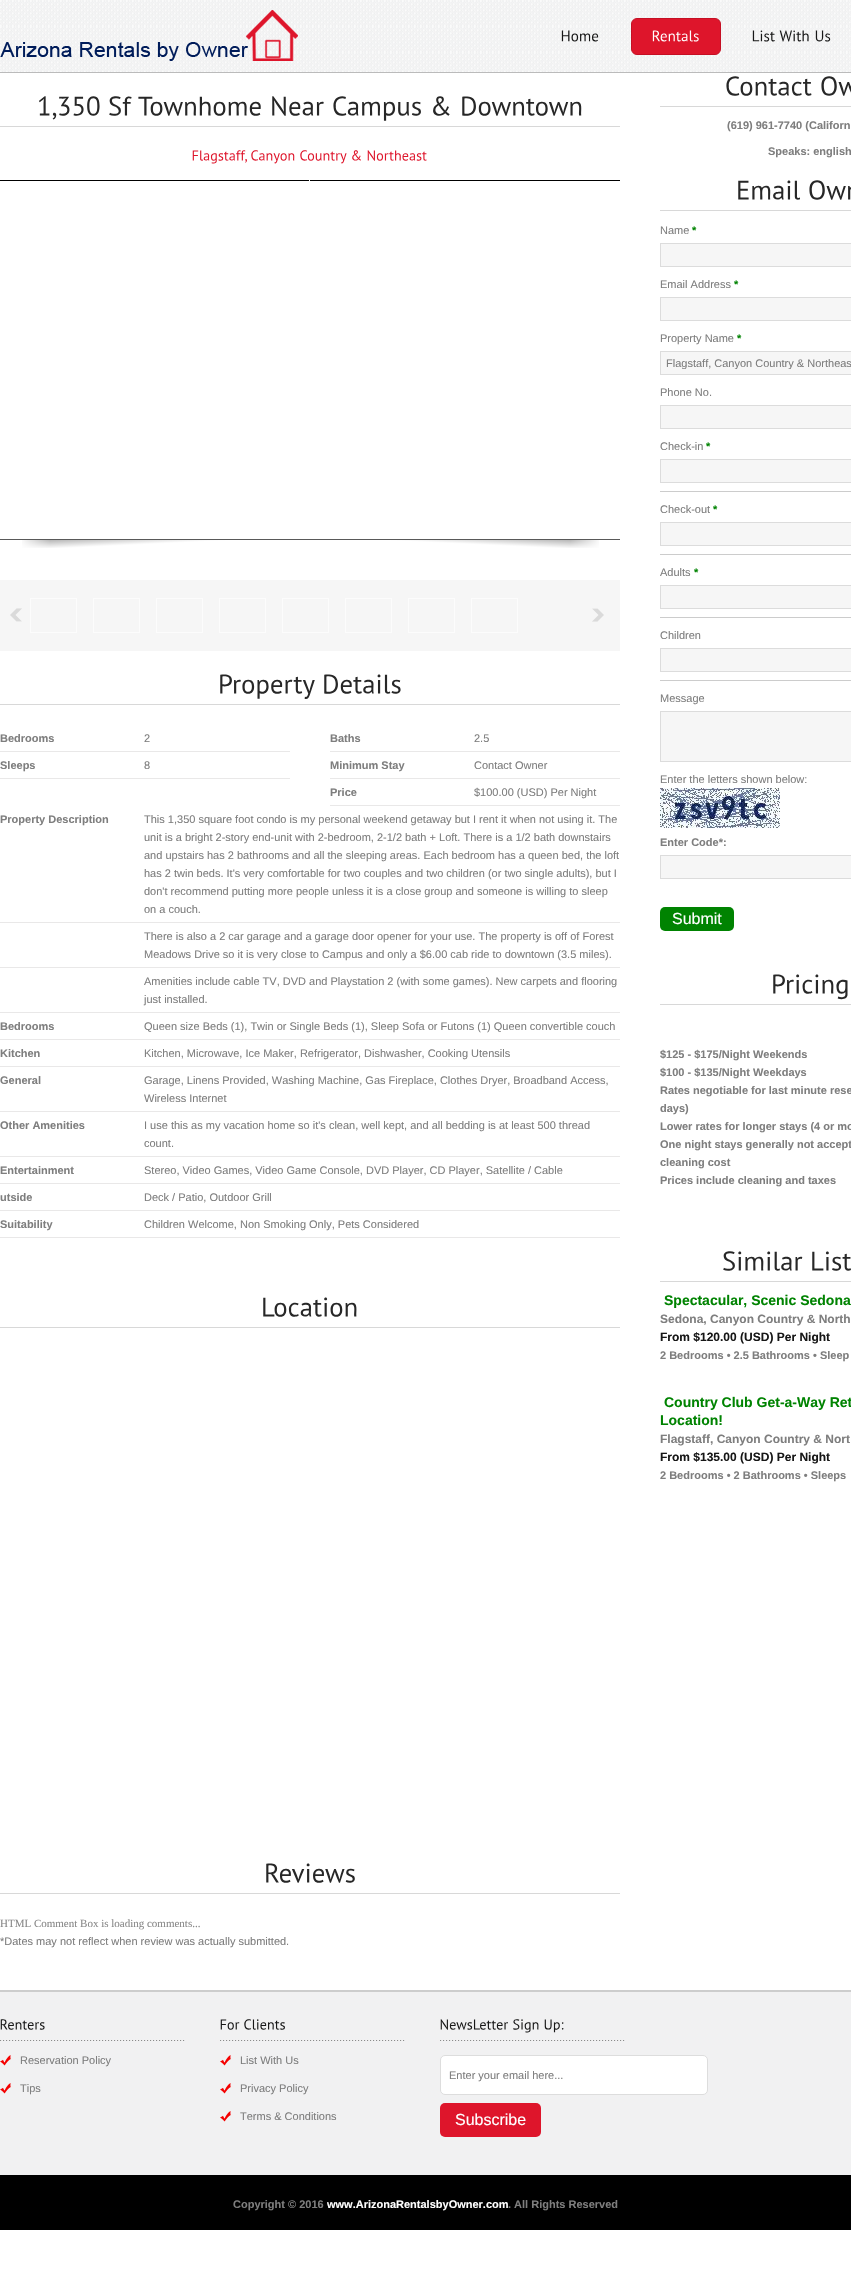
#include "include/core/SkBlurTypes.h"
#include "include/core/SkCanvas.h"
#include "include/core/SkData.h"
#include "include/core/SkFont.h"
#include "include/core/SkFontMgr.h"
#include "include/core/SkImage.h"
#include "include/core/SkMaskFilter.h"
#include "include/core/SkPaint.h"
#include "include/core/SkPathBuilder.h"
#include "include/core/SkTextBlob.h"
#include "include/effects/SkDashPathEffect.h"
#include "include/effects/SkGradientShader.h"
#include "include/utils/SkParsePath.h"

extern sk_sp<SkFontMgr> fontMgr;

static SkFont font(const char* family, int weight, float size, bool italic = false) {
    SkFontStyle style(weight, SkFontStyle::kNormal_Width,
        italic ? SkFontStyle::kItalic_Slant : SkFontStyle::kUpright_Slant);
    SkFont result(fontMgr->matchFamilyStyle(family, style), size);
    result.setSubpixel(true);
    return result;
}

static void drawLabel(SkCanvas* canvas, const char* s, float x, float y, const SkFont& font, SkColor color) {
    SkPaint ink(SkColor4f::FromColor(color));
    ink.setAntiAlias(true);
    canvas->drawString(s, x, y, font, ink);
}

static void fillRect(SkCanvas* canvas, float x, float y, float w, float h, SkColor color) {
    SkPaint ink(SkColor4f::FromColor(color));
    ink.setAntiAlias(true);
    canvas->drawRect(SkRect::MakeXYWH(x, y, w, h), ink);
}

static void fillRRect(SkCanvas* canvas, float x, float y, float w, float h, float radius, SkColor color) {
    SkPaint ink(SkColor4f::FromColor(color));
    ink.setAntiAlias(true);
    canvas->drawRoundRect(SkRect::MakeXYWH(x, y, w, h), radius, radius, ink);
}

static void drawPhoto(SkCanvas* canvas, const char* path, float x, float y, float w, float h) {
    auto image = SkImages::DeferredFromEncodedData(SkData::MakeFromFileName(path));
    canvas->drawImageRect(image, SkRect::MakeXYWH(x, y, w, h), SkSamplingOptions());
}

void draw(SkCanvas* canvas) {
    SkPaint paint;
    paint.setAntiAlias(true);
    canvas->clear(0xFFFFFFFF);
    drawPhoto(canvas, "assets/img1.png", 0, 0, 851, 72);
    fillRect(canvas, 0, 72, 851, 1, 0xFFBBBBBB);
    drawPhoto(canvas, "assets/img2.png", 0, 10, 298, 51);
    drawPhoto(canvas, "assets/img3.png", 561, 30, 38, 12);
    paint.setColor(0xFFDE152B);
    canvas->drawRoundRect(SkRect::MakeXYWH(631.5f, 18.5f, 89, 36), 5.5f, 5.5f, paint);
    paint.setStroke(true);
    paint.setStrokeWidth(1);
    paint.setColor(0xFFC50F23);
    canvas->drawRoundRect(SkRect::MakeXYWH(631.5f, 18.5f, 89, 36), 5.5f, 5.5f, paint);
    drawPhoto(canvas, "assets/img4.png", 652, 30, 47, 12);
    drawPhoto(canvas, "assets/img5.png", 752, 30, 23, 12);
    drawPhoto(canvas, "assets/img6.png", 779, 30, 30, 12);
    drawPhoto(canvas, "assets/img7.png", 815, 30, 16, 12);
    fillRect(canvas, 0, 126, 620, 1, 0xFFD8D8D8);
    drawPhoto(canvas, "assets/img8.png", 39, 96, 61, 24);
    drawPhoto(canvas, "assets/img9.png", 109, 96, 23, 20);
    drawPhoto(canvas, "assets/img10.png", 138, 96, 123, 20);
    drawPhoto(canvas, "assets/img11.png", 272, 96, 52, 20);
    drawPhoto(canvas, "assets/img12.png", 333, 96, 88, 25);
    drawPhoto(canvas, "assets/img13.png", 433, 96, 17, 20);
    drawPhoto(canvas, "assets/img14.png", 462, 96, 120, 20);
    drawPhoto(canvas, "assets/img15.png", 192, 150, 55, 14);
    drawPhoto(canvas, "assets/img16.png", 251, 150, 44, 14);
    drawPhoto(canvas, "assets/img17.png", 300, 150, 47, 14);
    drawPhoto(canvas, "assets/img18.png", 352, 150, 9, 11);
    drawPhoto(canvas, "assets/img19.png", 367, 150, 60, 11);
    drawPhoto(canvas, "assets/img20.png", 22, 540, 577, 8);
    fillRect(canvas, 310, 180, 310, 1, 0xFF000000);
    fillRect(canvas, 0, 180, 309, 1, 0xFF000000);
    fillRect(canvas, 0, 539, 620, 1, 0xFF595959);
    fillRect(canvas, 0, 580, 620, 71, 0xFFF6F6F6);
    drawPhoto(canvas, "assets/img21.png", 10, 608, 12, 14);
    paint.setColor(0xFFFCFCFC);
    canvas->drawRect(SkRect::MakeXYWH(30.5f, 598.5f, 46, 34), paint);
    canvas->drawRect(SkRect::MakeXYWH(93.5f, 598.5f, 46, 34), paint);
    canvas->drawRect(SkRect::MakeXYWH(156.5f, 598.5f, 46, 34), paint);
    canvas->drawRect(SkRect::MakeXYWH(219.5f, 598.5f, 46, 34), paint);
    canvas->drawRect(SkRect::MakeXYWH(282.5f, 598.5f, 46, 34), paint);
    canvas->drawRect(SkRect::MakeXYWH(345.5f, 598.5f, 46, 34), paint);
    canvas->drawRect(SkRect::MakeXYWH(408.5f, 598.5f, 46, 34), paint);
    canvas->drawRect(SkRect::MakeXYWH(471.5f, 598.5f, 46, 34), paint);
    drawPhoto(canvas, "assets/img22.png", 592, 608, 12, 14);
    fillRect(canvas, 0, 704, 620, 1, 0xFFD8D8D8);
    drawPhoto(canvas, "assets/img23.png", 220, 674, 95, 25);
    drawPhoto(canvas, "assets/img24.png", 324, 674, 77, 20);
    fillRect(canvas, 0, 751, 290, 1, 0xFFE9E8E8);
    SkFont font1 = font("Liberation Sans", 700, 11);
    drawLabel(canvas, "Bedrooms", 0, 742, font1, 0xFF7E7E7E);
    SkFont font2 = font("Liberation Sans", 400, 11);
    drawLabel(canvas, "2", 144, 742, font2, 0xFF7E7E7E);
    fillRect(canvas, 0, 778, 290, 1, 0xFFE9E8E8);
    drawLabel(canvas, "Sleeps", 0, 769, font1, 0xFF7E7E7E);
    drawLabel(canvas, "8", 144, 769, font2, 0xFF7E7E7E);
    fillRect(canvas, 330, 751, 290, 1, 0xFFE9E8E8);
    drawLabel(canvas, "Baths", 330, 742, font1, 0xFF7E7E7E);
    drawLabel(canvas, "2.5", 474, 742, font2, 0xFF7E7E7E);
    fillRect(canvas, 330, 778, 290, 1, 0xFFE9E8E8);
    drawLabel(canvas, "Minimum Stay", 330, 769, font1, 0xFF7E7E7E);
    drawLabel(canvas, "Contact Owner", 474, 769, font2, 0xFF7E7E7E);
    fillRect(canvas, 330, 805, 290, 1, 0xFFE9E8E8);
    drawLabel(canvas, "Price", 330, 796, font1, 0xFF7E7E7E);
    drawLabel(canvas, "$100.00 (USD) Per Night", 474, 796, font2, 0xFF7E7E7E);
    fillRect(canvas, 0, 922, 620, 1, 0xFFE9E8E8);
    drawLabel(canvas, "Property Description", 0, 823, font1, 0xFF7E7E7E);
    drawLabel(canvas, "This 1,350 square foot condo is my personal weekend getaway but I rent it when not using it. The", 144, 823, font2, 0xFF7E7E7E);
    drawLabel(canvas, "unit is a bright 2-story end-unit with 2-bedroom, 2-1/2 bath + Loft. There is a 1/2 bath downstairs", 144, 841, font2, 0xFF7E7E7E);
    drawLabel(canvas, "and upstairs has 2 bathrooms and all the sleeping areas. Each bedroom has a queen bed, the loft", 144, 859, font2, 0xFF7E7E7E);
    drawLabel(canvas, "has 2 twin beds. It's very comfortable for two couples and two children (or two single adults), but I", 144, 877, font2, 0xFF7E7E7E);
    drawLabel(canvas, "don't recommend putting more people unless it is a close group and someone is willing to sleep", 144, 895, font2, 0xFF7E7E7E);
    drawLabel(canvas, "on a couch.", 144, 913, font2, 0xFF7E7E7E);
    fillRect(canvas, 0, 967, 620, 1, 0xFFE9E8E8);
    drawLabel(canvas, "There is also a 2 car garage and a garage door opener for your use. The property is off of Forest", 144, 940, font2, 0xFF7E7E7E);
    drawLabel(canvas, "Meadows Drive so it is very close to Campus and only a $6.00 cab ride to downtown (3.5 miles).", 144, 958, font2, 0xFF7E7E7E);
    fillRect(canvas, 0, 1012, 620, 1, 0xFFE9E8E8);
    drawLabel(canvas, "Amenities include cable TV, DVD and Playstation 2 (with some games). New carpets and flooring", 144, 985, font2, 0xFF7E7E7E);
    drawLabel(canvas, "just installed.", 144, 1003, font2, 0xFF7E7E7E);
    fillRect(canvas, 0, 1039, 620, 1, 0xFFE9E8E8);
    drawLabel(canvas, "Bedrooms", 0, 1030, font1, 0xFF7E7E7E);
    drawLabel(canvas, "Queen size Beds (1), Twin or Single Beds (1), Sleep Sofa or Futons (1) Queen convertible couch", 144, 1030, font2, 0xFF7E7E7E);
    fillRect(canvas, 0, 1066, 620, 1, 0xFFE9E8E8);
    drawLabel(canvas, "Kitchen", 0, 1057, font1, 0xFF7E7E7E);
    drawLabel(canvas, "Kitchen, Microwave, Ice Maker, Refrigerator, Dishwasher, Cooking Utensils", 144, 1057, font2, 0xFF7E7E7E);
    fillRect(canvas, 0, 1111, 620, 1, 0xFFE9E8E8);
    drawLabel(canvas, "General", 0, 1084, font1, 0xFF7E7E7E);
    drawLabel(canvas, "Garage, Linens Provided, Washing Machine, Gas Fireplace, Clothes Dryer, Broadband Access,", 144, 1084, font2, 0xFF7E7E7E);
    drawLabel(canvas, "Wireless Internet", 144, 1102, font2, 0xFF7E7E7E);
    fillRect(canvas, 0, 1156, 620, 1, 0xFFE9E8E8);
    drawLabel(canvas, "Other Amenities", 0, 1129, font1, 0xFF7E7E7E);
    drawLabel(canvas, "I use this as my vacation home so it's clean, well kept, and all bedding is at least 500 thread", 144, 1129, font2, 0xFF7E7E7E);
    drawLabel(canvas, "count.", 144, 1147, font2, 0xFF7E7E7E);
    fillRect(canvas, 0, 1183, 620, 1, 0xFFE9E8E8);
    drawLabel(canvas, "Entertainment", 0, 1174, font1, 0xFF7E7E7E);
    drawLabel(canvas, "Stereo, Video Games, Video Game Console, DVD Player, CD Player, Satellite / Cable", 144, 1174, font2, 0xFF7E7E7E);
    fillRect(canvas, 0, 1210, 620, 1, 0xFFE9E8E8);
    drawLabel(canvas, "utside", 0, 1201, font1, 0xFF7E7E7E);
    drawLabel(canvas, "Deck / Patio, Outdoor Grill", 144, 1201, font2, 0xFF7E7E7E);
    fillRect(canvas, 0, 1237, 620, 1, 0xFFE9E8E8);
    drawLabel(canvas, "Suitability", 0, 1228, font1, 0xFF7E7E7E);
    drawLabel(canvas, "Children Welcome, Non Smoking Only, Pets Considered", 144, 1228, font2, 0xFF7E7E7E);
    fillRect(canvas, 0, 1327, 620, 1, 0xFFD8D8D8);
    drawPhoto(canvas, "assets/img25.png", 263, 1297, 94, 20);
    fillRect(canvas, 0, 1893, 620, 1, 0xFFD8D8D8);
    drawPhoto(canvas, "assets/img26.png", 266, 1863, 89, 20);
    SkFont font3 = font("Liberation Serif", 400, 11);
    drawLabel(canvas, "HTML Comment Box is loading comments...", 0, 1927, font3, 0xFF888888);
    drawLabel(canvas, "*Dates may not reflect when review was actually submitted.", 0, 1945, font2, 0xFF7E7E7E);
    fillRect(canvas, 660, 106, 191, 1, 0xFFD8D8D8);
    drawPhoto(canvas, "assets/img27.png", 726, 76, 86, 20);
    drawPhoto(canvas, "assets/img28.png", 821, 76, 30, 20);
    drawLabel(canvas, "(619) 961-7740 (Californ", 727, 129, font1, 0xFF7E7E7E);
    drawLabel(canvas, "Speaks: english", 768, 155, font1, 0xFF7E7E7E);
    fillRect(canvas, 660, 210, 191, 1, 0xFFD8D8D8);
    drawPhoto(canvas, "assets/img29.png", 738, 180, 62, 20);
    drawPhoto(canvas, "assets/img30.png", 809, 180, 42, 20);
    drawLabel(canvas, "Name", 660, 234, font2, 0xFF7E7E7E);
    drawLabel(canvas, "*", 692, 234, font1, 0xFF008301);
    paint.setStroke(false);
    paint.setColor(0xFFF6F6F6);
    canvas->drawRect(SkRect::MakeXYWH(660.5f, 243.5f, 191, 23), paint);
    paint.setStroke(true);
    paint.setColor(0xFFDCDCDC);
    canvas->drawRect(SkRect::MakeXYWH(660.5f, 243.5f, 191, 23), paint);
    drawLabel(canvas, "Email Address", 660, 288, font2, 0xFF7E7E7E);
    drawLabel(canvas, "*", 734, 288, font1, 0xFF008301);
    paint.setStroke(false);
    paint.setColor(0xFFF6F6F6);
    canvas->drawRect(SkRect::MakeXYWH(660.5f, 297.5f, 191, 23), paint);
    paint.setStroke(true);
    paint.setColor(0xFFDCDCDC);
    canvas->drawRect(SkRect::MakeXYWH(660.5f, 297.5f, 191, 23), paint);
    drawLabel(canvas, "Property Name", 660, 342, font2, 0xFF7E7E7E);
    drawLabel(canvas, "*", 737, 342, font1, 0xFF008301);
    paint.setStroke(false);
    paint.setColor(0xFFF6F6F6);
    canvas->drawRect(SkRect::MakeXYWH(660.5f, 351.5f, 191, 23), paint);
    paint.setStroke(true);
    paint.setColor(0xFFDCDCDC);
    canvas->drawRect(SkRect::MakeXYWH(660.5f, 351.5f, 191, 23), paint);
    canvas->save();
    canvas->clipRect(SkRect::MakeXYWH(666, 357, 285, 12));
    drawLabel(canvas, "Flagstaff, Canyon Country & Northeas", 666, 367, font2, 0xFF7E7E7E);
    canvas->restore();
    drawLabel(canvas, "Phone No.", 660, 396, font2, 0xFF7E7E7E);
    paint.setStroke(false);
    paint.setColor(0xFFF6F6F6);
    canvas->drawRect(SkRect::MakeXYWH(660.5f, 405.5f, 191, 23), paint);
    paint.setStroke(true);
    paint.setColor(0xFFDCDCDC);
    canvas->drawRect(SkRect::MakeXYWH(660.5f, 405.5f, 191, 23), paint);
    fillRect(canvas, 660, 491, 191, 1, 0xFFCCCCCC);
    drawLabel(canvas, "Check-in", 660, 450, font2, 0xFF7E7E7E);
    drawLabel(canvas, "*", 706, 450, font1, 0xFF008301);
    paint.setStroke(false);
    paint.setColor(0xFFF6F6F6);
    canvas->drawRect(SkRect::MakeXYWH(660.5f, 459.5f, 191, 23), paint);
    paint.setStroke(true);
    paint.setColor(0xFFDCDCDC);
    canvas->drawRect(SkRect::MakeXYWH(660.5f, 459.5f, 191, 23), paint);
    fillRect(canvas, 660, 554, 191, 1, 0xFFCCCCCC);
    drawLabel(canvas, "Check-out", 660, 513, font2, 0xFF7E7E7E);
    drawLabel(canvas, "*", 713, 513, font1, 0xFF008301);
    paint.setStroke(false);
    paint.setColor(0xFFF6F6F6);
    canvas->drawRect(SkRect::MakeXYWH(660.5f, 522.5f, 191, 23), paint);
    paint.setStroke(true);
    paint.setColor(0xFFDCDCDC);
    canvas->drawRect(SkRect::MakeXYWH(660.5f, 522.5f, 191, 23), paint);
    fillRect(canvas, 660, 617, 191, 1, 0xFFCCCCCC);
    drawLabel(canvas, "Adults", 660, 576, font2, 0xFF7E7E7E);
    drawLabel(canvas, "*", 694, 576, font1, 0xFF008301);
    paint.setStroke(false);
    paint.setColor(0xFFF6F6F6);
    canvas->drawRect(SkRect::MakeXYWH(660.5f, 585.5f, 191, 23), paint);
    paint.setStroke(true);
    paint.setColor(0xFFDCDCDC);
    canvas->drawRect(SkRect::MakeXYWH(660.5f, 585.5f, 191, 23), paint);
    fillRect(canvas, 660, 680, 191, 1, 0xFFCCCCCC);
    drawLabel(canvas, "Children", 660, 639, font2, 0xFF7E7E7E);
    paint.setStroke(false);
    paint.setColor(0xFFF6F6F6);
    canvas->drawRect(SkRect::MakeXYWH(660.5f, 648.5f, 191, 23), paint);
    paint.setStroke(true);
    paint.setColor(0xFFDCDCDC);
    canvas->drawRect(SkRect::MakeXYWH(660.5f, 648.5f, 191, 23), paint);
    drawLabel(canvas, "Message", 660, 702, font2, 0xFF7E7E7E);
    paint.setStroke(false);
    paint.setColor(0xFFF6F6F6);
    canvas->drawRect(SkRect::MakeXYWH(660.5f, 711.5f, 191, 50), paint);
    paint.setStroke(true);
    paint.setColor(0xFFDCDCDC);
    canvas->drawRect(SkRect::MakeXYWH(660.5f, 711.5f, 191, 50), paint);
    drawLabel(canvas, "Enter the letters shown below:", 660, 783, font2, 0xFF7E7E7E);
    drawPhoto(canvas, "assets/img31.png", 660, 788, 120, 40);
    drawLabel(canvas, "Enter Code*:", 660, 846, font1, 0xFF7E7E7E);
    paint.setStroke(false);
    paint.setColor(0xFFF6F6F6);
    canvas->drawRect(SkRect::MakeXYWH(660.5f, 855.5f, 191, 23), paint);
    paint.setStroke(true);
    paint.setColor(0xFFDCDCDC);
    canvas->drawRect(SkRect::MakeXYWH(660.5f, 855.5f, 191, 23), paint);
    fillRRect(canvas, 660, 907, 74, 24, 5, 0xFF008301);
    SkFont font4 = font("Liberation Sans", 400, 16);
    drawLabel(canvas, "Submit", 672, 924, font4, 0xFFFFFFFF);
    fillRect(canvas, 660, 1004, 191, 1, 0xFFD8D8D8);
    drawPhoto(canvas, "assets/img32.png", 773, 974, 75, 26);
    drawLabel(canvas, "$125 - $175/Night Weekends", 660, 1058, font1, 0xFF7E7E7E);
    drawLabel(canvas, "$100 - $135/Night Weekdays", 660, 1076, font1, 0xFF7E7E7E);
    drawLabel(canvas, "Rates negotiable for last minute rese", 660, 1094, font1, 0xFF7E7E7E);
    drawLabel(canvas, "days)", 660, 1112, font1, 0xFF7E7E7E);
    drawLabel(canvas, "Lower rates for longer stays (4 or mo", 660, 1130, font1, 0xFF7E7E7E);
    drawLabel(canvas, "One night stays generally not accept", 660, 1148, font1, 0xFF7E7E7E);
    drawLabel(canvas, "cleaning cost", 660, 1166, font1, 0xFF7E7E7E);
    drawLabel(canvas, "Prices include cleaning and taxes", 660, 1184, font1, 0xFF7E7E7E);
    fillRect(canvas, 660, 1281, 191, 1, 0xFFD8D8D8);
    drawPhoto(canvas, "assets/img33.png", 723, 1251, 80, 20);
    drawPhoto(canvas, "assets/img34.png", 812, 1251, 39, 20);
    SkFont font5 = font("Liberation Sans", 700, 14);
    drawLabel(canvas, "Spectacular, Scenic Sedona", 664, 1305, font5, 0xFF008301);
    SkFont font6 = font("Liberation Sans", 700, 12);
    drawLabel(canvas, "Sedona, Canyon Country & North", 660, 1323, font6, 0xFF7E7E7E);
    drawLabel(canvas, "From $120.00 (USD) Per Night", 660, 1341, font6, 0xFF171717);
    drawLabel(canvas, "2 Bedrooms • 2.5 Bathrooms • Sleep", 660, 1359, font1, 0xFF7E7E7E);
    drawLabel(canvas, "Country Club Get-a-Way Ret", 664, 1407, font5, 0xFF008301);
    drawLabel(canvas, "Location!", 660, 1425, font5, 0xFF008301);
    drawLabel(canvas, "Flagstaff, Canyon Country & Nort", 660, 1443, font6, 0xFF7E7E7E);
    drawLabel(canvas, "From $135.00 (USD) Per Night", 660, 1461, font6, 0xFF171717);
    drawLabel(canvas, "2 Bedrooms • 2 Bathrooms • Sleeps", 660, 1479, font1, 0xFF7E7E7E);
    fillRect(canvas, 0, 1992, 851, 183, 0xFFF1F1F2);
    fillRect(canvas, 0, 1990, 851, 2, 0xFFCDCDCD);
    drawPhoto(canvas, "assets/img35.png", 0, 2040, 185, 1);
    drawPhoto(canvas, "assets/img36.png", 0, 2019, 45, 11);
    drawPhoto(canvas, "assets/img37.png", 0, 2055, 11, 11);
    drawLabel(canvas, "Reservation Policy", 20, 2064, font2, 0xFF7E7E7E);
    drawPhoto(canvas, "assets/img37.png", 0, 2083, 11, 11);
    drawLabel(canvas, "Tips", 20, 2092, font2, 0xFF7E7E7E);
    drawPhoto(canvas, "assets/img35.png", 220, 2040, 185, 1);
    drawPhoto(canvas, "assets/img38.png", 220, 2019, 20, 11);
    drawPhoto(canvas, "assets/img39.png", 244, 2019, 41, 11);
    drawPhoto(canvas, "assets/img37.png", 220, 2055, 11, 11);
    drawLabel(canvas, "List With Us", 240, 2064, font2, 0xFF7E7E7E);
    drawPhoto(canvas, "assets/img37.png", 220, 2083, 11, 11);
    drawLabel(canvas, "Privacy Policy", 240, 2092, font2, 0xFF7E7E7E);
    drawPhoto(canvas, "assets/img37.png", 220, 2111, 11, 11);
    drawLabel(canvas, "Terms & Conditions", 240, 2120, font2, 0xFF7E7E7E);
    drawPhoto(canvas, "assets/img35.png", 440, 2040, 185, 1);
    drawPhoto(canvas, "assets/img40.png", 440, 2019, 68, 11);
    drawPhoto(canvas, "assets/img41.png", 513, 2019, 26, 14);
    drawPhoto(canvas, "assets/img42.png", 544, 2019, 20, 14);
    paint.setStroke(false);
    paint.setColor(0xFFFFFFFF);
    canvas->drawRoundRect(SkRect::MakeXYWH(440.5f, 2055.5f, 267, 39), 4.5f, 4.5f, paint);
    paint.setStroke(true);
    paint.setColor(0xFFDDDDDD);
    canvas->drawRoundRect(SkRect::MakeXYWH(440.5f, 2055.5f, 267, 39), 4.5f, 4.5f, paint);
    drawLabel(canvas, "Enter your email here...", 449, 2079, font2, 0xFF7E7E7E);
    fillRRect(canvas, 440, 2103, 101, 34, 5, 0xFFDE152B);
    drawLabel(canvas, "Subscribe", 455, 2125, font4, 0xFFFFFFFF);
    fillRect(canvas, 0, 2175, 851, 55, 0xFF000000);
    drawLabel(canvas, "Copyright © 2016", 233, 2208, font1, 0xFF7E7E7E);
    drawLabel(canvas, "www.ArizonaRentalsbyOwner.com", 327, 2208, font1, 0xFFFFFFFF);
    drawLabel(canvas, ". All Rights Reserved", 508, 2208, font1, 0xFF7E7E7E);
}
